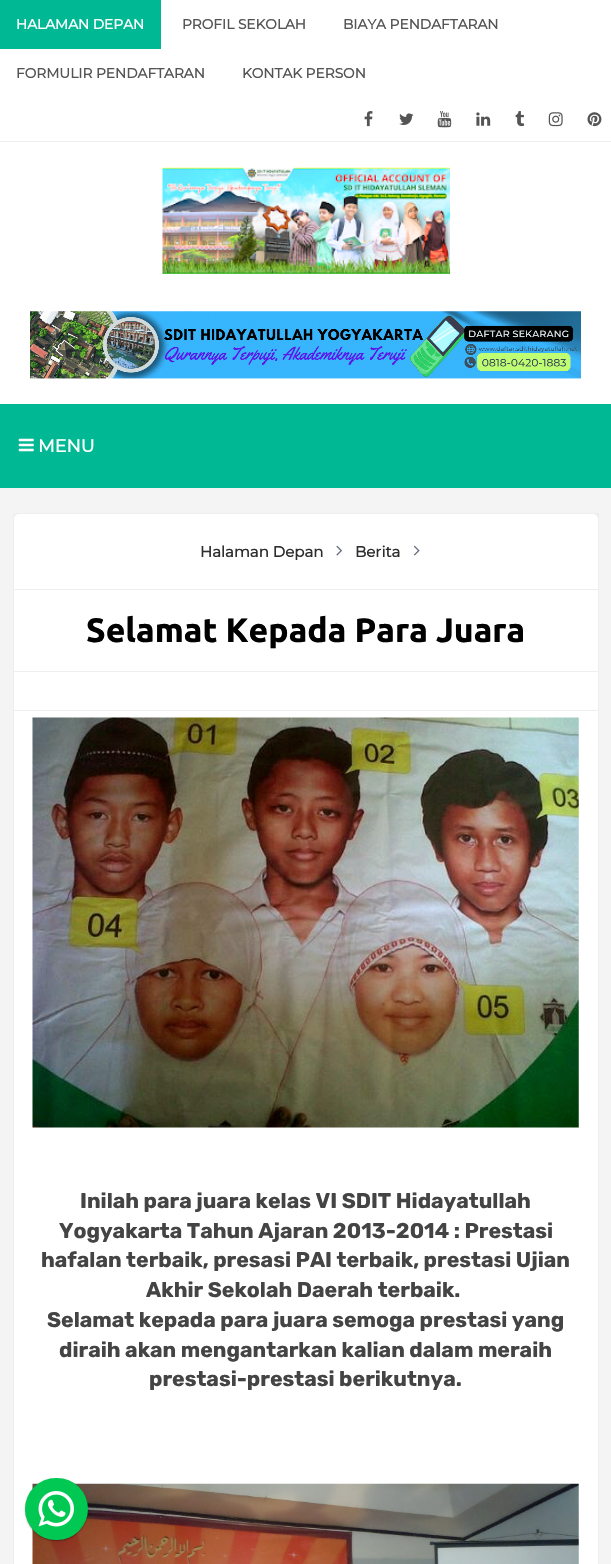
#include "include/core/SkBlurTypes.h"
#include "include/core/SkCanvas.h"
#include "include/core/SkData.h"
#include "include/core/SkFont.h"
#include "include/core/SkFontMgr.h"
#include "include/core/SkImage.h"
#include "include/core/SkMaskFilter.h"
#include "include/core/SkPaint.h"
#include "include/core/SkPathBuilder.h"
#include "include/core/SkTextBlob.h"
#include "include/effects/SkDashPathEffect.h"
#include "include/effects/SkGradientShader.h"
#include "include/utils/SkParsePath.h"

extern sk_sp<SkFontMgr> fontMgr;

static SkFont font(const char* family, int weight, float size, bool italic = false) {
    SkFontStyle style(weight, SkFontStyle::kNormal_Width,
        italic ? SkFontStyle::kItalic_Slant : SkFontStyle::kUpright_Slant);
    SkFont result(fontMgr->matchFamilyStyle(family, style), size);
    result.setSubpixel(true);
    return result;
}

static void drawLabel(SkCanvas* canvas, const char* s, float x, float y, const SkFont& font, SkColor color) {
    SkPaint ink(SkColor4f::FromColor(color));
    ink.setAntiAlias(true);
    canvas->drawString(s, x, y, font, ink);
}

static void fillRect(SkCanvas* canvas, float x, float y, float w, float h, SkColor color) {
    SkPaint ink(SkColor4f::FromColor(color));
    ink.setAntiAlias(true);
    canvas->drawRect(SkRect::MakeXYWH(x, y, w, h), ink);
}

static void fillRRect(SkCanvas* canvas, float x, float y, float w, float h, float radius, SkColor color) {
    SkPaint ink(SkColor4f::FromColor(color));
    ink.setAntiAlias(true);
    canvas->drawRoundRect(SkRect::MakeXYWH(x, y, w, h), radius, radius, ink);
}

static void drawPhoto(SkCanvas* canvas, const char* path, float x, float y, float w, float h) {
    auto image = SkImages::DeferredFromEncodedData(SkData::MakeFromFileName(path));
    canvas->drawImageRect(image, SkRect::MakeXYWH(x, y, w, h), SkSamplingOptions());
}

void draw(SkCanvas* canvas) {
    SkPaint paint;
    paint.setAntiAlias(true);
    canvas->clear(0xFFF4F4F4);
    fillRect(canvas, 0, 0, 611, 404, 0xFFFFFFFF);
    fillRect(canvas, 0, 141, 611, 1, 0xFFEEEEEE);
    fillRect(canvas, 0, 0, 161, 49, 0xFF00B894);
    SkFont font1 = font("Montserrat", 700, 13.75f);
    drawLabel(canvas, "HALAMAN DEPAN", 16, 29, font1, 0xFFFFFFFF);
    drawLabel(canvas, "PROFIL SEKOLAH", 182, 29, font1, 0xFF545454);
    drawLabel(canvas, "BIAYA PENDAFTARAN", 343, 29, font1, 0xFF545454);
    drawLabel(canvas, "FORMULIR PENDAFTARAN", 16, 78, font1, 0xFF545454);
    drawLabel(canvas, "KONTAK PERSON", 242, 78, font1, 0xFF545454);
    drawPhoto(canvas, "assets/img1.png", 364, 111, 9, 16);
    drawPhoto(canvas, "assets/img2.png", 399, 113, 15, 12);
    drawPhoto(canvas, "assets/img3.png", 437, 111, 15, 17);
    drawPhoto(canvas, "assets/img4.png", 476, 112, 15, 14);
    drawPhoto(canvas, "assets/img5.png", 515, 111, 10, 16);
    drawPhoto(canvas, "assets/img6.png", 548, 112, 15, 15);
    drawPhoto(canvas, "assets/img7.png", 587, 112, 15, 15);
    drawPhoto(canvas, "assets/img8.png", 162, 167, 288, 107);
    drawPhoto(canvas, "assets/img9.png", 30, 311, 551, 68);
    fillRect(canvas, 0, 404, 611, 84, 0xFF00B894);
    drawPhoto(canvas, "assets/img10.png", 18, 438, 16, 14);
    SkFont font2 = font("Montserrat", 700, 17.5f);
    drawLabel(canvas, "MENU", 38, 452, font2, 0xFFFFFFFF);
    canvas->save();
    canvas->clipRect(SkRect::MakeXYWH(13, 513, 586, 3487));
    paint.setColor(0x1A000000);
    paint.setMaskFilter(SkMaskFilter::MakeBlur(kNormal_SkBlurStyle, 9.5f));
    canvas->drawRoundRect(SkRect::MakeXYWH(18, 518, 586, 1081), 6, 6, paint);
    paint.setMaskFilter(nullptr);
    canvas->restore();
    paint.setColor(0xFFFFFFFF);
    canvas->drawRoundRect(SkRect::MakeXYWH(13.5f, 513.5f, 585, 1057), 5.5f, 5.5f, paint);
    paint.setStroke(true);
    paint.setStrokeWidth(1);
    paint.setColor(0xFFEEEEEE);
    canvas->drawRoundRect(SkRect::MakeXYWH(13.5f, 513.5f, 585, 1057), 5.5f, 5.5f, paint);
    fillRect(canvas, 14, 589, 584, 1, 0xFFEEEEEE);
    SkFont font3 = font("Montserrat", 700, 15);
    drawLabel(canvas, "Halaman Depan", 200, 557, font3, 0xFF2D2D2D);
    drawPhoto(canvas, "assets/img11.png", 336, 545, 6, 11);
    drawLabel(canvas, "Berita", 355, 557, font3, 0xFF2D2D2D);
    drawPhoto(canvas, "assets/img12.png", 413, 545, 7, 11);
    fillRect(canvas, 14, 671, 584, 1, 0xFFEEEEEE);
    SkFont font4 = font("Ubuntu", 700, 33.75f);
    drawLabel(canvas, "Selamat Kepada Para Juara", 86, 642, font4, 0xFF000000);
    fillRect(canvas, 14, 710, 584, 1, 0xFFEEEEEE);
    drawPhoto(canvas, "assets/img13.png", 32, 717, 547, 411);
    SkFont font5 = font("Rubik", 700, 21.25f);
    drawLabel(canvas, "Inilah para juara kelas VI SDIT Hidayatullah", 80, 1208, font5, 0xFF444444);
    drawLabel(canvas, "Yogyakarta Tahun Ajaran 2013-2014 : Prestasi", 59, 1238, font5, 0xFF444444);
    drawLabel(canvas, "hafalan terbaik, presasi PAI terbaik, prestasi Ujian", 41, 1267, font5, 0xFF444444);
    drawLabel(canvas, "Akhir Sekolah Daerah terbaik.", 146, 1297, font5, 0xFF444444);
    drawLabel(canvas, "Selamat kepada para juara semoga prestasi yang", 47, 1327, font5, 0xFF444444);
    drawLabel(canvas, "diraih akan mengantarkan kalian dalam meraih", 59, 1357, font5, 0xFF444444);
    drawLabel(canvas, "prestasi-prestasi berikutnya.", 149, 1386, font5, 0xFF444444);
    drawPhoto(canvas, "assets/img14.png", 32, 1483, 547, 81);
    paint.setStroke(false);
    paint.setColor(0x3D000000);
    paint.setMaskFilter(SkMaskFilter::MakeBlur(kNormal_SkBlurStyle, 0.5f));
    canvas->drawRoundRect(SkRect::MakeXYWH(25, 1479, 63, 62), 31, 31, paint);
    paint.setMaskFilter(nullptr);
    paint.setColor(0x1F000000);
    paint.setMaskFilter(SkMaskFilter::MakeBlur(kNormal_SkBlurStyle, 1));
    canvas->drawRoundRect(SkRect::MakeXYWH(25, 1479, 63, 62), 31, 31, paint);
    paint.setMaskFilter(nullptr);
    fillRRect(canvas, 25, 1478, 63, 62, 31, 0xFF00C853);
    drawPhoto(canvas, "assets/img15.png", 38, 1491, 36, 36);
}
